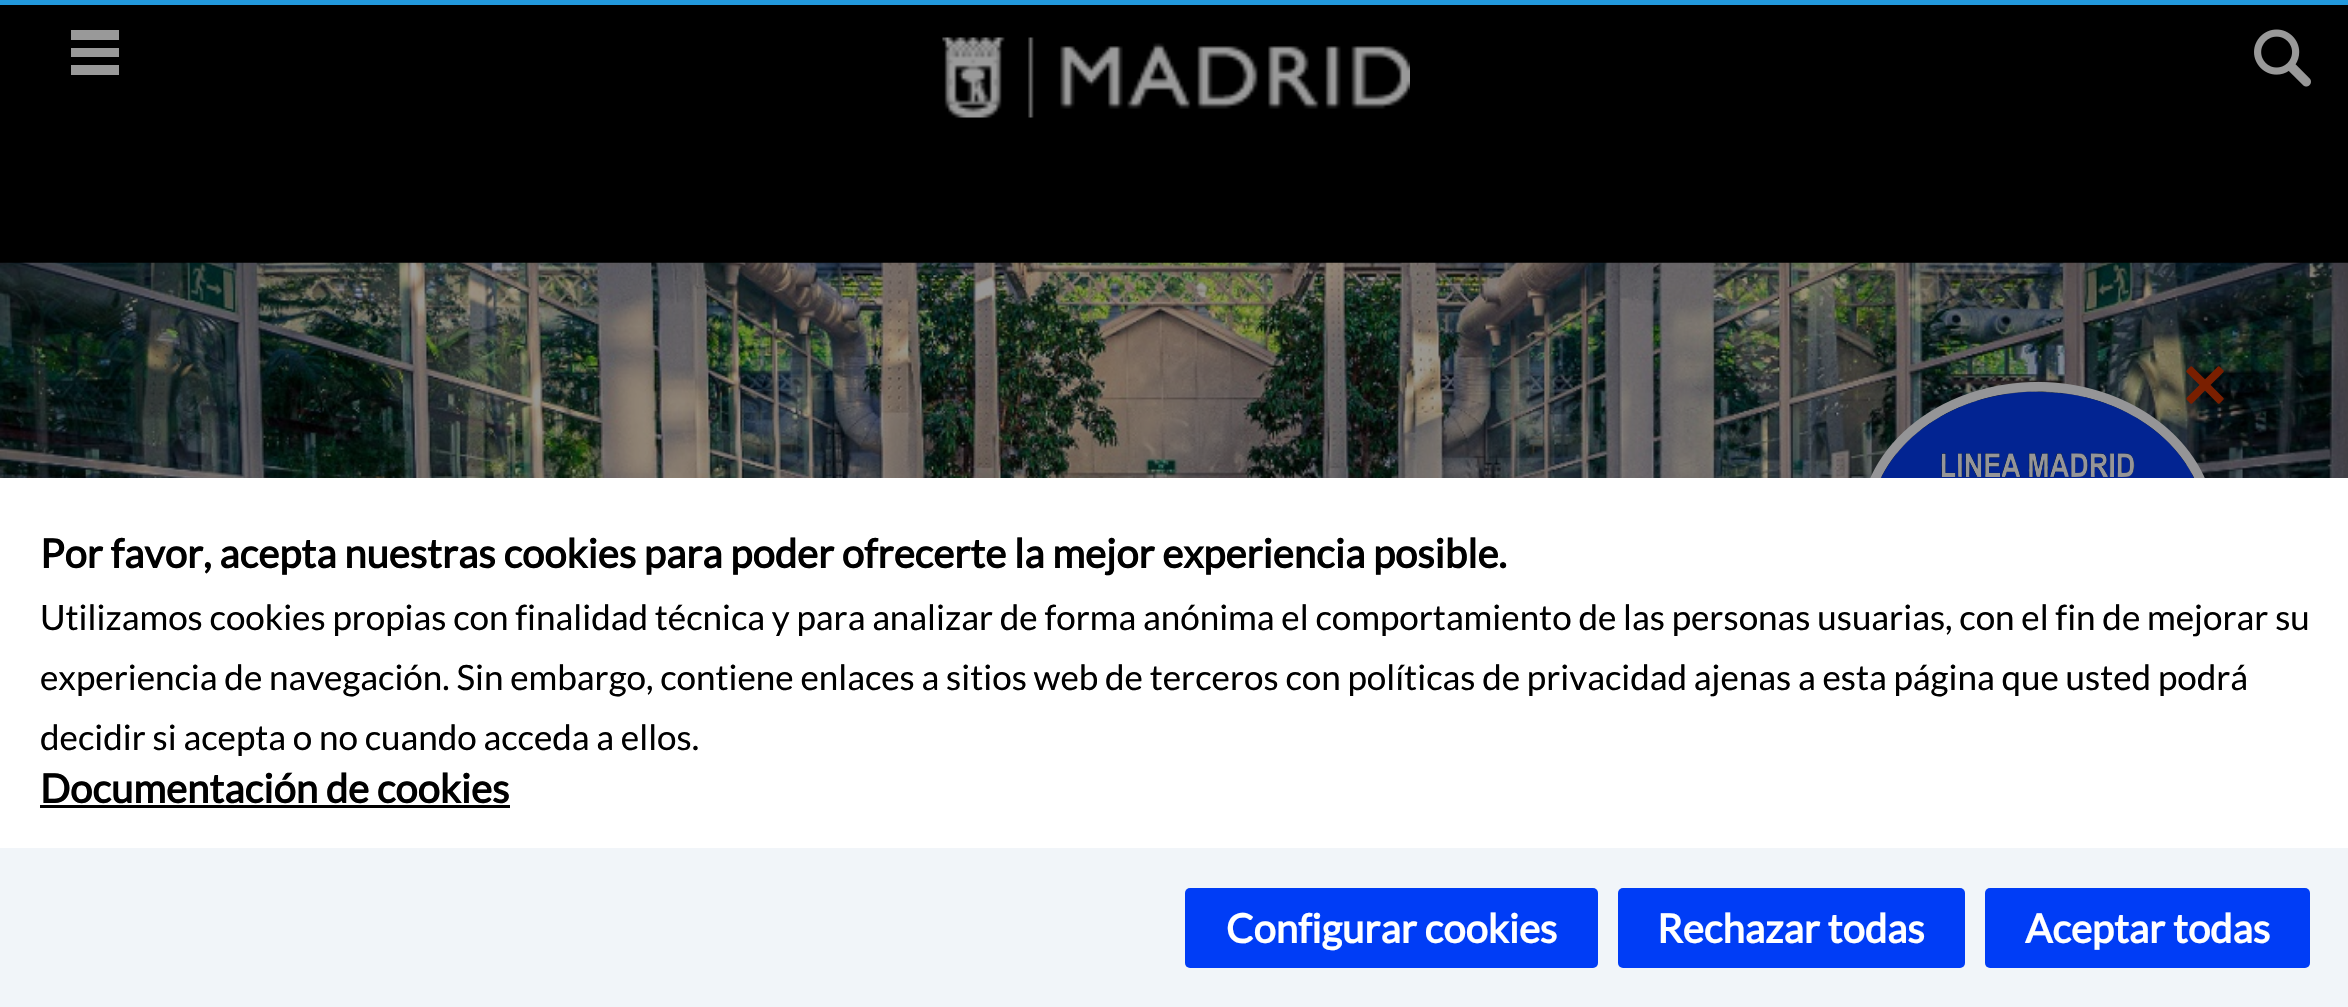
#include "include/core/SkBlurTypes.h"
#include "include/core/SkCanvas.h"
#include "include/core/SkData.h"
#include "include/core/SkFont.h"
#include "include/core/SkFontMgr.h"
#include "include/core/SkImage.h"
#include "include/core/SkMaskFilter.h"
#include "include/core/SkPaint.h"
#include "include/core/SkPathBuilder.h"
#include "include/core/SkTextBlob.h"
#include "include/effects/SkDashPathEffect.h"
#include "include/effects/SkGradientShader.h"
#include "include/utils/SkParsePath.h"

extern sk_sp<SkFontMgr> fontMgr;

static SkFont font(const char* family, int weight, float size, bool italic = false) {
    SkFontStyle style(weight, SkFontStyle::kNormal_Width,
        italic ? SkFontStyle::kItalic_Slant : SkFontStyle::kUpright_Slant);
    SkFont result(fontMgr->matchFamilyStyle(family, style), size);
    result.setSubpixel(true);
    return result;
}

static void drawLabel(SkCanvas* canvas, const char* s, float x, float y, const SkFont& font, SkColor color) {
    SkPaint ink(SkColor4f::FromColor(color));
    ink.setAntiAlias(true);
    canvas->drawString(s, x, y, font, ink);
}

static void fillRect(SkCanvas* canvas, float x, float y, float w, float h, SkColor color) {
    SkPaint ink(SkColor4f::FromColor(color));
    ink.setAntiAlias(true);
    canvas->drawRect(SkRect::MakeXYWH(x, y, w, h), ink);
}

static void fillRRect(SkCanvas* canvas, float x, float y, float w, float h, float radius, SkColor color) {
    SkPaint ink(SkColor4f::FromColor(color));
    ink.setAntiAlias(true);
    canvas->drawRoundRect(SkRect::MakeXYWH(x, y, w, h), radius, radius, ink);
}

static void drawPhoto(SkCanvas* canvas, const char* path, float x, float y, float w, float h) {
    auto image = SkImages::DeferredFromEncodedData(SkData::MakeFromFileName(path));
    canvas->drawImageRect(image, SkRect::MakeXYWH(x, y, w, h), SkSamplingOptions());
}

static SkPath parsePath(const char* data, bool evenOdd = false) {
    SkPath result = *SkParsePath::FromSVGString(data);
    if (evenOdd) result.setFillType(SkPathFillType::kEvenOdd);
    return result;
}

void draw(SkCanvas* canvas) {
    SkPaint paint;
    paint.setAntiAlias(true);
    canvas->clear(0xFF000000);
    fillRect(canvas, 0, 0, 2348, 5, 0xFF2299DD);
    paint.setColor(0xFF999999);
    canvas->drawPath(parsePath("M71 30V40H119V30ZM71 57H119V48H71ZM71 75H119V65H71Z"), paint);
    drawPhoto(canvas, "assets/img1.png", 942, 37, 468, 81);
    drawPhoto(canvas, "assets/img2.png", 2254, 29, 57, 58);
    drawPhoto(canvas, "assets/img3.png", 0, 262, 2348, 216);
    drawPhoto(canvas, "assets/img5.png", 1870, 381, 335, 97);
    drawPhoto(canvas, "assets/img4.png", 2186, 366, 38, 38);
    fillRect(canvas, 0, 478, 2348, 370, 0xFFFFFFFF);
    SkFont font1 = font("Lato", 700, 40);
    drawLabel(canvas, "Por favor, acepta nuestras cookies para poder ofrecerte la mejor experiencia posible.", 40, 568, font1, 0xFF000000);
    SkFont font2 = font("Lato", 400, 35);
    drawLabel(canvas, "Utilizamos cookies propias con finalidad técnica y para analizar de forma anónima el comportamiento de las personas usuarias, con el fin de mejorar su", 40, 630, font2, 0xFF000000);
    drawLabel(canvas, "experiencia de navegación. Sin embargo, contiene enlaces a sitios web de terceros con políticas de privacidad ajenas a esta página que usted podrá", 40, 690, font2, 0xFF000000);
    drawLabel(canvas, "decidir si acepta o no cuando acceda a ellos.", 40, 750, font2, 0xFF000000);
    drawLabel(canvas, "Documentación de cookies", 40, 803, font1, 0xFF000000);
    fillRect(canvas, 40, 805, 470, 3, 0xFF000000);
    fillRect(canvas, 0, 848, 2348, 159, 0xFFF1F5F9);
    fillRRect(canvas, 1185, 888, 413, 80, 5, 0xFF003DF6);
    drawLabel(canvas, "Configurar cookies", 1226, 943, font1, 0xFFFFFFFF);
    fillRRect(canvas, 1618, 888, 347, 80, 5, 0xFF003DF6);
    drawLabel(canvas, "Rechazar todas", 1657, 943, font1, 0xFFFFFFFF);
    fillRRect(canvas, 1985, 888, 325, 80, 5, 0xFF003DF6);
    drawLabel(canvas, "Aceptar todas", 2025, 943, font1, 0xFFFFFFFF);
}
